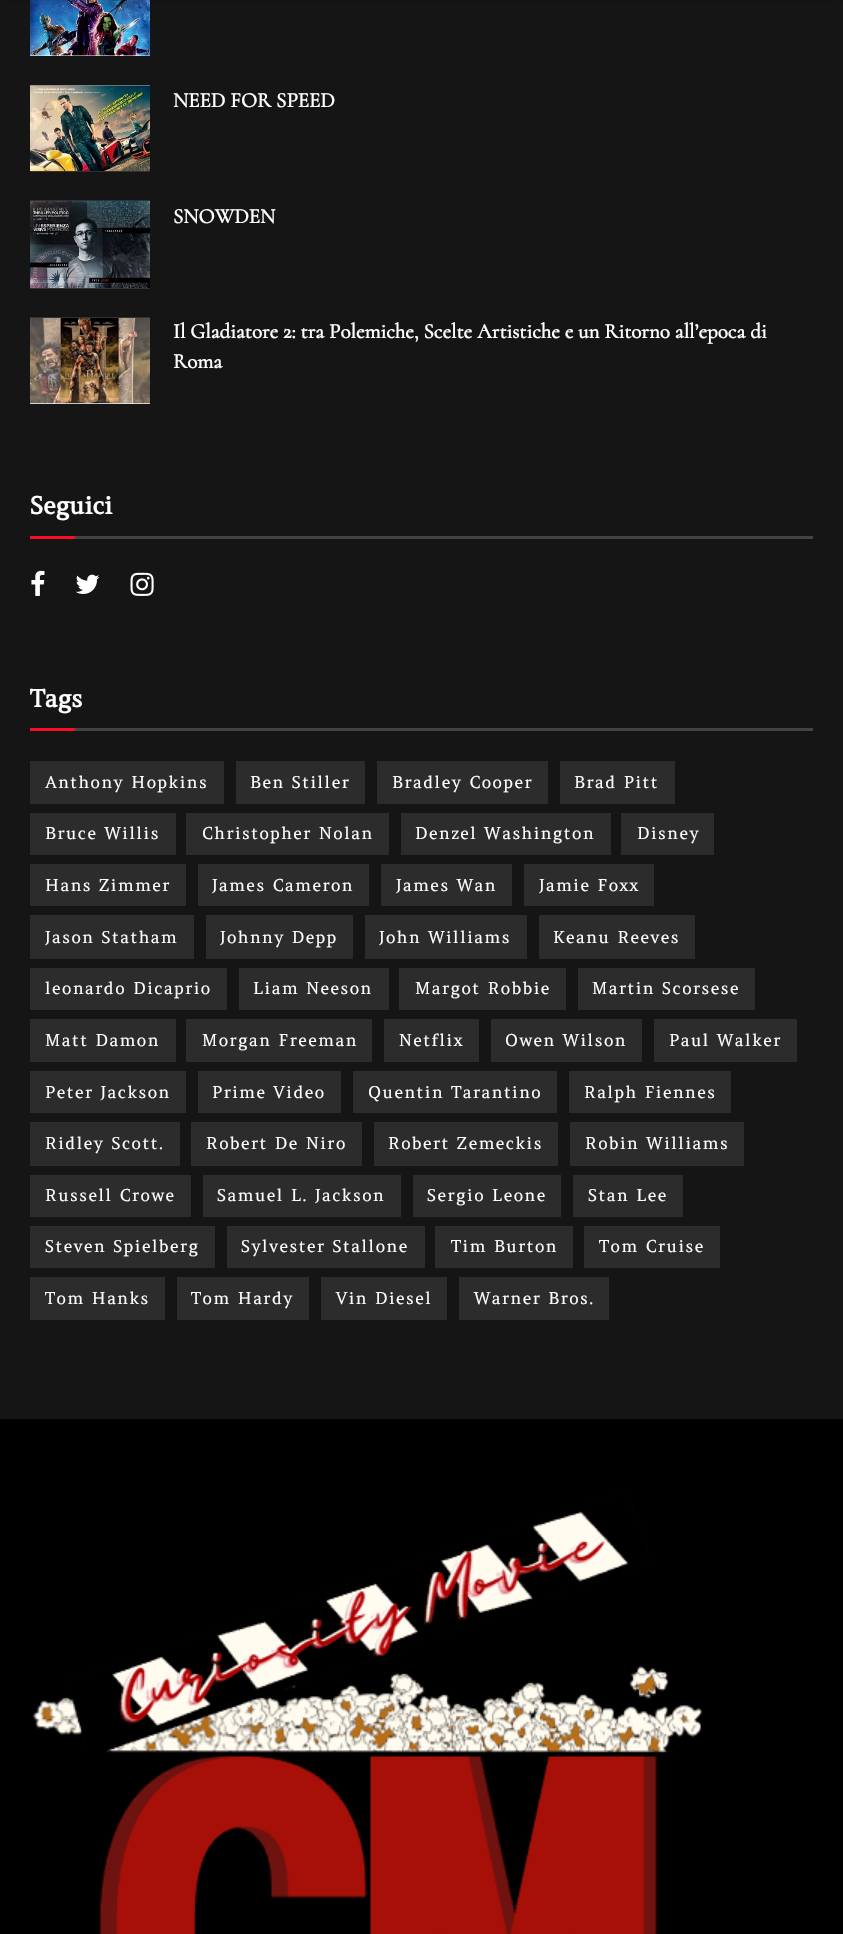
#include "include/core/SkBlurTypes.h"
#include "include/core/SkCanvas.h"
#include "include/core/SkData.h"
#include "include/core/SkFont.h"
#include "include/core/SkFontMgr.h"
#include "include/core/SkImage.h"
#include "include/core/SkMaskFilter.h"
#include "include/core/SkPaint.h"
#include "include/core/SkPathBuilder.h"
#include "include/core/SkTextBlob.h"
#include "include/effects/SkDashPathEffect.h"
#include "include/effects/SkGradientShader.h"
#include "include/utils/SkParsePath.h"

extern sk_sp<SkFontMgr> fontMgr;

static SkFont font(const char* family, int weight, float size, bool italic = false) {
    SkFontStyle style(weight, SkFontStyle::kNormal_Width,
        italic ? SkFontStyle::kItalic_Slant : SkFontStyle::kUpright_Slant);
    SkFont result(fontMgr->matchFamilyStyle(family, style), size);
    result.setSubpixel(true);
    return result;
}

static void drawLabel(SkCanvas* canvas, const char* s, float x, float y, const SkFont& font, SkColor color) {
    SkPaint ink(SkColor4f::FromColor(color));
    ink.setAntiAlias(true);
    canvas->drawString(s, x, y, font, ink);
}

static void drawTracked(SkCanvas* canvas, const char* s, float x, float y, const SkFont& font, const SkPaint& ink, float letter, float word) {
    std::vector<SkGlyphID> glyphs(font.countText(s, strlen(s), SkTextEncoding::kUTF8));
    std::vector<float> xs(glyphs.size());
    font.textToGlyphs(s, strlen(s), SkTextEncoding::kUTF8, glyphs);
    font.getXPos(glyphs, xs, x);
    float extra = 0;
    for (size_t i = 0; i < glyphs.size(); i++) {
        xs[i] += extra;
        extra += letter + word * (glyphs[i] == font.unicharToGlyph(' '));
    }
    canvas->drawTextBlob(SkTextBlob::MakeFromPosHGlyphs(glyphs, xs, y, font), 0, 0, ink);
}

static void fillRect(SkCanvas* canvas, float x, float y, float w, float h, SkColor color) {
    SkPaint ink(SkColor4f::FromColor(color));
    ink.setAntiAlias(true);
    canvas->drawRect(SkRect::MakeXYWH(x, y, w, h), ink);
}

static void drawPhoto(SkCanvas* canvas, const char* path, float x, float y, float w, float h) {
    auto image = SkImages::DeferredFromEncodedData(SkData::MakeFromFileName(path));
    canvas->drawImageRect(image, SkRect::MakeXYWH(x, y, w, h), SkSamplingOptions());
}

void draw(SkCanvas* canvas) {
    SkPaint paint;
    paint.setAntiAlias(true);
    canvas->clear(0xFF151515);
    fillRect(canvas, 30, 55, 120, 1, 0xFFF7F7F7);
    drawPhoto(canvas, "assets/img1.png", 30, 0, 120, 56);
    paint.setColor(0x1A000000);
    paint.setMaskFilter(SkMaskFilter::MakeBlur(kNormal_SkBlurStyle, 4.5f));
    canvas->drawRect(SkRect::MakeXYWH(0, -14, 843, 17), paint);
    paint.setMaskFilter(nullptr);
    drawPhoto(canvas, "assets/img2.png", 30, 85, 120, 87);
    drawPhoto(canvas, "assets/img3.png", 30, 85, 120, 86);
    SkFont font1 = font("Cormorant", 700, 21);
    drawLabel(canvas, "NEED FOR SPEED", 173, 107, font1, 0xFFFFFFFF);
    drawPhoto(canvas, "assets/img4.png", 30, 200, 120, 89);
    drawPhoto(canvas, "assets/img5.png", 30, 201, 120, 87);
    drawLabel(canvas, "SNOWDEN", 173, 223, font1, 0xFFFFFFFF);
    fillRect(canvas, 30, 403, 120, 1, 0xFFF7F7F7);
    fillRect(canvas, 30, 317, 120, 1, 0xFF323232);
    drawPhoto(canvas, "assets/img6.png", 30, 318, 120, 86);
    drawLabel(canvas, "Il Gladiatore 2: tra Polemiche, Scelte Artistiche e un Ritorno all’epoca di", 173, 338, font1, 0xFFFFFFFF);
    drawLabel(canvas, "Roma", 173, 368, font1, 0xFFFFFFFF);
    fillRect(canvas, 75, 536, 738, 3, 0xFF444444);
    SkFont font2 = font("Amethysta", 700, 24);
    drawLabel(canvas, "Seguici", 30, 514, font2, 0xFFFFFFFF);
    fillRect(canvas, 30, 536, 45, 3, 0xFFF70D28);
    drawPhoto(canvas, "assets/img7.png", 31, 570, 14, 26);
    drawPhoto(canvas, "assets/img8.png", 75, 574, 25, 20);
    drawPhoto(canvas, "assets/img9.png", 130, 572, 24, 24);
    fillRect(canvas, 75, 728, 738, 3, 0xFF444444);
    drawLabel(canvas, "Tags", 30, 707, font2, 0xFFFFFFFF);
    fillRect(canvas, 30, 728, 45, 3, 0xFFF70D28);
    fillRect(canvas, 30, 761, 194, 43, 0xFF2C2C2C);
    SkFont font3 = font("Amethysta", 400, 16.5f);
    paint.setColor(0xFFFFFFFF);
    drawTracked(canvas, "Anthony Hopkins", 45, 788, font3, paint, 1.5f, 0);
    fillRect(canvas, 236, 761, 129, 43, 0xFF2C2C2C);
    drawTracked(canvas, "Ben Stiller", 250, 788, font3, paint, 1.5f, 0);
    fillRect(canvas, 377, 761, 171, 43, 0xFF2C2C2C);
    drawTracked(canvas, "Bradley Cooper", 392, 788, font3, paint, 1.5f, 0);
    fillRect(canvas, 560, 761, 115, 43, 0xFF2C2C2C);
    drawTracked(canvas, "Brad Pitt", 574, 788, font3, paint, 1.5f, 0);
    fillRect(canvas, 30, 813, 146, 42, 0xFF2C2C2C);
    drawTracked(canvas, "Bruce Willis", 45, 839, font3, paint, 1.5f, 0);
    fillRect(canvas, 186, 813, 203, 42, 0xFF2C2C2C);
    drawTracked(canvas, "Christopher Nolan", 202, 839, font3, paint, 1.5f, 0);
    fillRect(canvas, 401, 813, 210, 42, 0xFF2C2C2C);
    drawTracked(canvas, "Denzel Washington", 415, 839, font3, paint, 1.5f, 0);
    fillRect(canvas, 621, 813, 93, 42, 0xFF2C2C2C);
    drawTracked(canvas, "Disney", 637, 839, font3, paint, 1.5f, 0);
    fillRect(canvas, 30, 864, 156, 42, 0xFF2C2C2C);
    drawTracked(canvas, "Hans Zimmer", 45, 891, font3, paint, 1.5f, 0);
    fillRect(canvas, 198, 864, 171, 42, 0xFF2C2C2C);
    drawTracked(canvas, "James Cameron", 212, 891, font3, paint, 1.5f, 0);
    fillRect(canvas, 381, 864, 131, 42, 0xFF2C2C2C);
    drawTracked(canvas, "James Wan", 396, 891, font3, paint, 1.5f, 0);
    fillRect(canvas, 524, 864, 130, 42, 0xFF2C2C2C);
    drawTracked(canvas, "Jamie Foxx", 539, 891, font3, paint, 1.5f, 0);
    fillRect(canvas, 30, 915, 164, 44, 0xFF2C2C2C);
    drawTracked(canvas, "Jason Statham", 45, 943, font3, paint, 1.5f, 0);
    fillRect(canvas, 206, 915, 147, 44, 0xFF2C2C2C);
    drawTracked(canvas, "Johnny Depp", 220, 943, font3, paint, 1.5f, 0);
    fillRect(canvas, 365, 915, 162, 44, 0xFF2C2C2C);
    drawTracked(canvas, "John Williams", 379, 943, font3, paint, 1.5f, 0);
    fillRect(canvas, 539, 915, 156, 44, 0xFF2C2C2C);
    drawTracked(canvas, "Keanu Reeves", 553, 943, font3, paint, 1.5f, 0);
    fillRect(canvas, 30, 968, 197, 42, 0xFF2C2C2C);
    drawTracked(canvas, "leonardo Dicaprio", 45, 994, font3, paint, 1.5f, 0);
    fillRect(canvas, 239, 968, 150, 42, 0xFF2C2C2C);
    drawTracked(canvas, "Liam Neeson", 253, 994, font3, paint, 1.5f, 0);
    fillRect(canvas, 399, 968, 167, 42, 0xFF2C2C2C);
    drawTracked(canvas, "Margot Robbie", 415, 994, font3, paint, 1.5f, 0);
    fillRect(canvas, 578, 968, 177, 42, 0xFF2C2C2C);
    drawTracked(canvas, "Martin Scorsese", 592, 994, font3, paint, 1.5f, 0);
    fillRect(canvas, 30, 1019, 146, 43, 0xFF2C2C2C);
    drawTracked(canvas, "Matt Damon", 45, 1046, font3, paint, 1.5f, 0);
    fillRect(canvas, 186, 1019, 186, 43, 0xFF2C2C2C);
    drawTracked(canvas, "Morgan Freeman", 202, 1046, font3, paint, 1.5f, 0);
    fillRect(canvas, 384, 1019, 95, 43, 0xFF2C2C2C);
    drawTracked(canvas, "Netflix", 399, 1046, font3, paint, 1.5f, 0);
    fillRect(canvas, 491, 1019, 151, 43, 0xFF2C2C2C);
    drawTracked(canvas, "Owen Wilson", 505, 1046, font3, paint, 1.5f, 0);
    fillRect(canvas, 654, 1019, 143, 43, 0xFF2C2C2C);
    drawTracked(canvas, "Paul Walker", 669, 1046, font3, paint, 1.5f, 0);
    fillRect(canvas, 30, 1071, 156, 42, 0xFF2C2C2C);
    drawTracked(canvas, "Peter Jackson", 45, 1098, font3, paint, 1.5f, 0);
    fillRect(canvas, 198, 1071, 143, 42, 0xFF2C2C2C);
    drawTracked(canvas, "Prime Video", 212, 1098, font3, paint, 1.5f, 0);
    fillRect(canvas, 353, 1071, 204, 42, 0xFF2C2C2C);
    drawTracked(canvas, "Quentin Tarantino", 368, 1098, font3, paint, 1.5f, 0);
    fillRect(canvas, 569, 1071, 162, 42, 0xFF2C2C2C);
    drawTracked(canvas, "Ralph Fiennes", 584, 1098, font3, paint, 1.5f, 0);
    fillRect(canvas, 30, 1122, 150, 44, 0xFF2C2C2C);
    drawTracked(canvas, "Ridley Scott.", 45, 1149, font3, paint, 1.5f, 0);
    fillRect(canvas, 191, 1122, 171, 44, 0xFF2C2C2C);
    drawTracked(canvas, "Robert De Niro", 206, 1149, font3, paint, 1.5f, 0);
    fillRect(canvas, 374, 1122, 184, 44, 0xFF2C2C2C);
    drawTracked(canvas, "Robert Zemeckis", 388, 1149, font3, paint, 1.5f, 0);
    fillRect(canvas, 570, 1122, 174, 44, 0xFF2C2C2C);
    drawTracked(canvas, "Robin Williams", 585, 1149, font3, paint, 1.5f, 0);
    fillRect(canvas, 30, 1175, 161, 42, 0xFF2C2C2C);
    drawTracked(canvas, "Russell Crowe", 45, 1201, font3, paint, 1.5f, 0);
    fillRect(canvas, 203, 1175, 198, 42, 0xFF2C2C2C);
    drawTracked(canvas, "Samuel L. Jackson", 217, 1201, font3, paint, 1.5f, 0);
    fillRect(canvas, 413, 1175, 148, 42, 0xFF2C2C2C);
    drawTracked(canvas, "Sergio Leone", 427, 1201, font3, paint, 1.5f, 0);
    fillRect(canvas, 573, 1175, 110, 42, 0xFF2C2C2C);
    drawTracked(canvas, "Stan Lee", 588, 1201, font3, paint, 1.5f, 0);
    fillRect(canvas, 30, 1226, 185, 42, 0xFF2C2C2C);
    drawTracked(canvas, "Steven Spielberg", 45, 1252, font3, paint, 1.5f, 0);
    fillRect(canvas, 227, 1226, 198, 42, 0xFF2C2C2C);
    drawTracked(canvas, "Sylvester Stallone", 241, 1252, font3, paint, 1.5f, 0);
    fillRect(canvas, 435, 1226, 138, 42, 0xFF2C2C2C);
    drawTracked(canvas, "Tim Burton", 451, 1252, font3, paint, 1.5f, 0);
    fillRect(canvas, 584, 1226, 136, 42, 0xFF2C2C2C);
    drawTracked(canvas, "Tom Cruise", 599, 1252, font3, paint, 1.5f, 0);
    fillRect(canvas, 30, 1277, 135, 43, 0xFF2C2C2C);
    drawTracked(canvas, "Tom Hanks", 45, 1304, font3, paint, 1.5f, 0);
    fillRect(canvas, 177, 1277, 132, 43, 0xFF2C2C2C);
    drawTracked(canvas, "Tom Hardy", 191, 1304, font3, paint, 1.5f, 0);
    fillRect(canvas, 321, 1277, 126, 43, 0xFF2C2C2C);
    drawTracked(canvas, "Vin Diesel", 336, 1304, font3, paint, 1.5f, 0);
    fillRect(canvas, 459, 1277, 150, 43, 0xFF2C2C2C);
    drawTracked(canvas, "Warner Bros.", 474, 1304, font3, paint, 1.5f, 0);
    fillRect(canvas, 0, 1419, 843, 515, 0xFF000000);
    drawPhoto(canvas, "assets/img10.png", 32, 1493, 671, 441);
}
